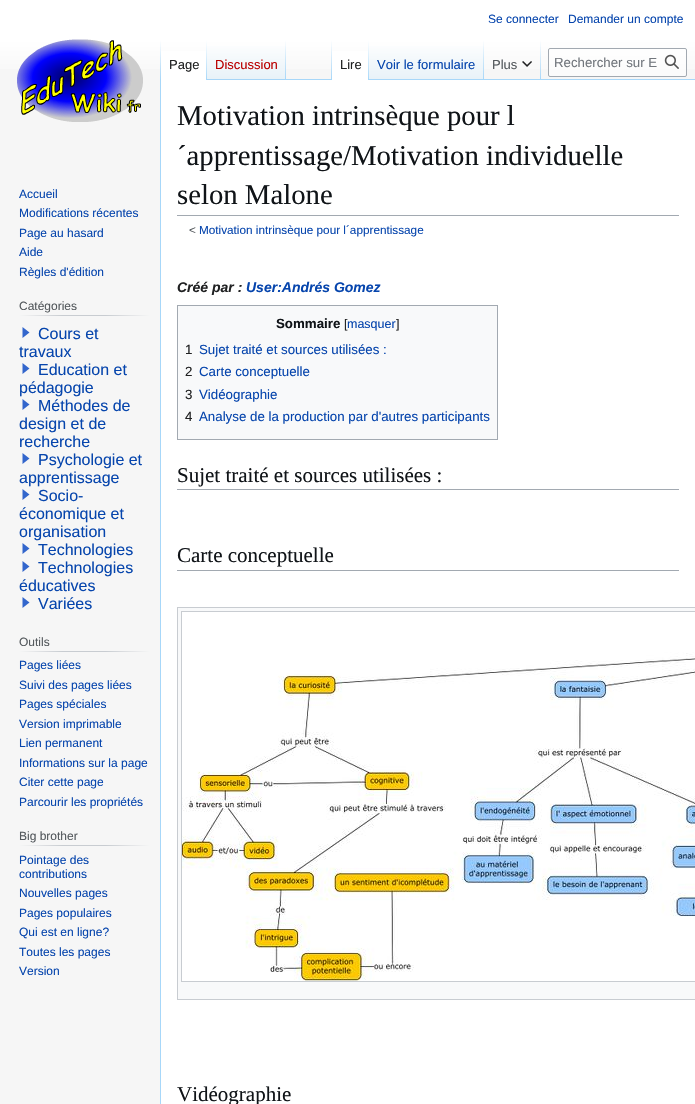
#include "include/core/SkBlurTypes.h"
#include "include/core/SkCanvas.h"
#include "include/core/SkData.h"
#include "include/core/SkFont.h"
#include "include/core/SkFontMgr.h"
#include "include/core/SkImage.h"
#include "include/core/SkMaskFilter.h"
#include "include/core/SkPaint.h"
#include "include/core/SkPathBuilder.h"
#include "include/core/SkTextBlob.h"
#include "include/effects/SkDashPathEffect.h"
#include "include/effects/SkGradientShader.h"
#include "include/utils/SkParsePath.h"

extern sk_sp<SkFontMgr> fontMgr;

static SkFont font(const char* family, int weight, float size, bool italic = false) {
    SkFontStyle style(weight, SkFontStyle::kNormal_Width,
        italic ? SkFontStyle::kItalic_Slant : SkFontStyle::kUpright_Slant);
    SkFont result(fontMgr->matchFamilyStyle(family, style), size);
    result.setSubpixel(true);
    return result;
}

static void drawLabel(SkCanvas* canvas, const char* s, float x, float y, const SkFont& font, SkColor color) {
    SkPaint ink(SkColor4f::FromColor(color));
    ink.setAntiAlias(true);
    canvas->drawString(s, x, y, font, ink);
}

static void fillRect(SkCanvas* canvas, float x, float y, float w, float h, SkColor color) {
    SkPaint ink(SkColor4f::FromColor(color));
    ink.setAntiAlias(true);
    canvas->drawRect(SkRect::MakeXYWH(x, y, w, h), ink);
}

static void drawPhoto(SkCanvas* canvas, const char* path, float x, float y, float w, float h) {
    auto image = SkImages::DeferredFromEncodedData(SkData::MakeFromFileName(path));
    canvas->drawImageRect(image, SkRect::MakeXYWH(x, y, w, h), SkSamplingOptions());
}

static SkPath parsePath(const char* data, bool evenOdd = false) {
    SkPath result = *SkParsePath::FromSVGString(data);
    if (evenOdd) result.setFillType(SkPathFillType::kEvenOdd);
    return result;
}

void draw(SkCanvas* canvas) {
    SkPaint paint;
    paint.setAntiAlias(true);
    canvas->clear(0xFFF6F6F6);
    {
        const SkColor colors[] = {0xFFFFFFFF, 0xFFF6F6F6};
        const float stops[] = {0.5f, 1};
        const SkPoint ends[] = {{348, 0}, {348, 80}};
        paint.setShader(SkGradientShader::MakeLinear(ends, colors, stops, 2, SkTileMode::kClamp));
        paint.setAlpha(255);
    }
    canvas->drawRect(SkRect::MakeXYWH(0, 0, 695, 69), paint);
    SkFont font1 = font("Liberation Sans", 400, 12);
    drawLabel(canvas, "Se connecter", 488, 23, font1, 0xFF0645AD);
    drawLabel(canvas, "Demander un compte", 568, 23, font1, 0xFF0645AD);
    fillRect(canvas, 160, 79, 1, 1025, 0xFFA7D7F9);
    {
        const SkColor colors[] = {0x00A7D7F9, 0xFFA7D7F9};
        const float stops[] = {0, 1};
        const SkPoint ends[] = {{161, 40}, {161, 80}};
        paint.setShader(SkGradientShader::MakeLinear(ends, colors, stops, 2, SkTileMode::kClamp));
        paint.setAlpha(255);
    }
    canvas->drawRect(SkRect::MakeXYWH(160, 40, 1, 40), paint);
    fillRect(canvas, 161, 51, 45, 29, 0xFFFFFFFF);
    {
        const SkColor colors[] = {0xFFFFFFFF, 0xFFA7D7F9};
        const float stops[] = {0, 1};
        const SkPoint ends[] = {{207, 40}, {207, 80}};
        paint.setShader(SkGradientShader::MakeLinear(ends, colors, stops, 2, SkTileMode::kClamp));
        paint.setAlpha(255);
    }
    canvas->drawRect(SkRect::MakeXYWH(206, 40, 1, 40), paint);
    SkFont font2 = font("Liberation Sans", 400, 13);
    drawLabel(canvas, "Page", 169, 69, font2, 0xFF202122);
    {
        const SkColor colors[] = {0xFF77C1F6, 0xFFE8F2F8, 0xFFFFFFFF};
        const float stops[] = {0, 0.03f, 1};
        const SkPoint ends[] = {{247, 80}, {247, 40}};
        paint.setShader(SkGradientShader::MakeLinear(ends, colors, stops, 3, SkTileMode::kClamp));
        paint.setAlpha(255);
    }
    canvas->drawRect(SkRect::MakeXYWH(207, 46, 79, 34), paint);
    {
        const SkColor colors[] = {0x00A7D7F9, 0xFFA7D7F9};
        const float stops[] = {0, 1};
        const SkPoint ends[] = {{286, 40}, {286, 80}};
        paint.setShader(SkGradientShader::MakeLinear(ends, colors, stops, 2, SkTileMode::kClamp));
        paint.setAlpha(255);
    }
    canvas->drawRect(SkRect::MakeXYWH(285, 40, 1, 40), paint);
    drawLabel(canvas, "Discussion", 215, 69, font2, 0xFFBA0000);
    fillRect(canvas, 286, 79, 409, 1, 0xFFA7D7F9);
    {
        const SkColor colors[] = {0x00A7D7F9, 0xFFA7D7F9};
        const float stops[] = {0, 1};
        const SkPoint ends[] = {{332, 40}, {332, 80}};
        paint.setShader(SkGradientShader::MakeLinear(ends, colors, stops, 2, SkTileMode::kClamp));
        paint.setAlpha(255);
    }
    canvas->drawRect(SkRect::MakeXYWH(331, 40, 1, 40), paint);
    fillRect(canvas, 332, 51, 36, 29, 0xFFFFFFFF);
    {
        const SkColor colors[] = {0xFFFFFFFF, 0xFFA7D7F9};
        const float stops[] = {0, 1};
        const SkPoint ends[] = {{369, 40}, {369, 80}};
        paint.setShader(SkGradientShader::MakeLinear(ends, colors, stops, 2, SkTileMode::kClamp));
        paint.setAlpha(255);
    }
    canvas->drawRect(SkRect::MakeXYWH(368, 40, 1, 40), paint);
    drawLabel(canvas, "Lire", 340, 69, font2, 0xFF202122);
    {
        const SkColor colors[] = {0xFF77C1F6, 0xFFE8F2F8, 0xFFFFFFFF};
        const float stops[] = {0, 0.03f, 1};
        const SkPoint ends[] = {{427, 80}, {427, 40}};
        paint.setShader(SkGradientShader::MakeLinear(ends, colors, stops, 3, SkTileMode::kClamp));
        paint.setAlpha(255);
    }
    canvas->drawRect(SkRect::MakeXYWH(369, 46, 115, 33), paint);
    {
        const SkColor colors[] = {0x00A7D7F9, 0xFFA7D7F9};
        const float stops[] = {0, 1};
        const SkPoint ends[] = {{484, 40}, {484, 80}};
        paint.setShader(SkGradientShader::MakeLinear(ends, colors, stops, 2, SkTileMode::kClamp));
        paint.setAlpha(255);
    }
    canvas->drawRect(SkRect::MakeXYWH(483, 40, 1, 40), paint);
    drawLabel(canvas, "Voir le formulaire", 377, 69, font2, 0xFF0645AD);
    {
        const SkColor colors[] = {0x00A7D7F9, 0xFFA7D7F9};
        const float stops[] = {0, 1};
        const SkPoint ends[] = {{541, 40}, {541, 80}};
        paint.setShader(SkGradientShader::MakeLinear(ends, colors, stops, 2, SkTileMode::kClamp));
        paint.setAlpha(255);
    }
    canvas->drawRect(SkRect::MakeXYWH(540, 40, 1, 40), paint);
    drawLabel(canvas, "Plus", 492, 69, font2, 0xFF54595D);
    drawPhoto(canvas, "assets/img1.png", 522, 61, 10, 6);
    paint.setShader(nullptr);
    paint.setColor(0x80FFFFFF);
    canvas->drawRoundRect(SkRect::MakeXYWH(548.5f, 48.5f, 138, 28), 1.5f, 1.5f, paint);
    paint.setStroke(true);
    paint.setStrokeWidth(1);
    paint.setColor(0xFFA2A9B1);
    canvas->drawRoundRect(SkRect::MakeXYWH(548.5f, 48.5f, 138, 28), 1.5f, 1.5f, paint);
    SkFont font3 = font("Liberation Sans", 400, 13.25f);
    drawLabel(canvas, "Rechercher sur E", 554, 67, font3, 0xFF72777D);
    drawPhoto(canvas, "assets/img2.png", 664, 54, 15, 15);
    drawPhoto(canvas, "assets/img3.png", 17, 39, 126, 83);
    drawLabel(canvas, "Accueil", 19, 198, font1, 0xFF0645AD);
    drawLabel(canvas, "Modifications récentes", 19, 217, font1, 0xFF0645AD);
    drawLabel(canvas, "Page au hasard", 19, 237, font1, 0xFF0645AD);
    drawLabel(canvas, "Aide", 19, 256, font1, 0xFF0645AD);
    drawLabel(canvas, "Règles d'édition", 19, 276, font1, 0xFF0645AD);
    paint.setStroke(false);
    {
        const SkColor colors[] = {0xFFF6F6F6, 0xFFC8CCD1, 0xFFC8CCD1, 0xFFF6F6F6};
        const float stops[] = {0, 0.33f, 0.66f, 1};
        const SkPoint ends[] = {{19, 316}, {150, 316}};
        paint.setShader(SkGradientShader::MakeLinear(ends, colors, stops, 4, SkTileMode::kClamp));
        paint.setAlpha(255);
    }
    canvas->drawRect(SkRect::MakeXYWH(19, 315, 131, 1), paint);
    drawLabel(canvas, "Catégories", 19, 310, font1, 0xFF54595D);
    SkFont font4 = font("Liberation Sans", 400, 16);
    drawLabel(canvas, "travaux", 19, 357, font4, 0xFF0645AD);
    paint.setShader(nullptr);
    paint.setColor(0xFF3366CC);
    canvas->drawPath(parsePath("M29.5 332.5L22.5 338V327ZM29.5 368.5L22.5 374V363Z"), paint);
    drawLabel(canvas, "Cours et", 38, 339, font4, 0xFF0645AD);
    drawLabel(canvas, "Education et", 38, 375, font4, 0xFF0645AD);
    drawLabel(canvas, "pédagogie", 19, 393, font4, 0xFF0645AD);
    canvas->drawPath(parsePath("M29.5 404.5L22.5 410V399Z"), paint);
    drawLabel(canvas, "Méthodes de", 38, 411, font4, 0xFF0645AD);
    drawLabel(canvas, "design et de", 19, 429, font4, 0xFF0645AD);
    drawLabel(canvas, "recherche", 19, 447, font4, 0xFF0645AD);
    drawLabel(canvas, "apprentissage", 19, 483, font4, 0xFF0645AD);
    canvas->drawPath(parsePath("M29.5 458.5L22.5 464V453ZM29.5 494.5L22.5 500V489Z"), paint);
    drawLabel(canvas, "Psychologie et", 38, 465, font4, 0xFF0645AD);
    drawLabel(canvas, "Socio-", 38, 501, font4, 0xFF0645AD);
    drawLabel(canvas, "économique et", 19, 519, font4, 0xFF0645AD);
    drawLabel(canvas, "organisation", 19, 537, font4, 0xFF0645AD);
    canvas->drawPath(parsePath("M29.5 548.5L22.5 554V543ZM29.5 566.5L22.5 572V561Z"), paint);
    drawLabel(canvas, "Technologies", 38, 555, font4, 0xFF0645AD);
    drawLabel(canvas, "Technologies", 38, 573, font4, 0xFF0645AD);
    drawLabel(canvas, "éducatives", 19, 591, font4, 0xFF0645AD);
    canvas->drawPath(parsePath("M29.5 602.5L22.5 608V597Z"), paint);
    drawLabel(canvas, "Variées", 38, 609, font4, 0xFF0645AD);
    {
        const SkColor colors[] = {0xFFF6F6F6, 0xFFC8CCD1, 0xFFC8CCD1, 0xFFF6F6F6};
        const float stops[] = {0, 0.33f, 0.66f, 1};
        const SkPoint ends[] = {{19, 652}, {150, 652}};
        paint.setShader(SkGradientShader::MakeLinear(ends, colors, stops, 4, SkTileMode::kClamp));
        paint.setAlpha(255);
    }
    canvas->drawRect(SkRect::MakeXYWH(19, 651, 131, 1), paint);
    drawLabel(canvas, "Outils", 19, 646, font1, 0xFF54595D);
    drawLabel(canvas, "Pages liées", 19, 669, font1, 0xFF0645AD);
    drawLabel(canvas, "Suivi des pages liées", 19, 689, font1, 0xFF0645AD);
    drawLabel(canvas, "Pages spéciales", 19, 708, font1, 0xFF0645AD);
    drawLabel(canvas, "Version imprimable", 19, 728, font1, 0xFF0645AD);
    drawLabel(canvas, "Lien permanent", 19, 747, font1, 0xFF0645AD);
    drawLabel(canvas, "Informations sur la page", 19, 767, font1, 0xFF0645AD);
    drawLabel(canvas, "Citer cette page", 19, 786, font1, 0xFF0645AD);
    drawLabel(canvas, "Parcourir les propriétés", 19, 806, font1, 0xFF0645AD);
    {
        const SkColor colors[] = {0xFFF6F6F6, 0xFFC8CCD1, 0xFFC8CCD1, 0xFFF6F6F6};
        const float stops[] = {0, 0.33f, 0.66f, 1};
        const SkPoint ends[] = {{19, 846}, {150, 846}};
        paint.setShader(SkGradientShader::MakeLinear(ends, colors, stops, 4, SkTileMode::kClamp));
        paint.setAlpha(255);
    }
    canvas->drawRect(SkRect::MakeXYWH(19, 845, 131, 1), paint);
    drawLabel(canvas, "Big brother", 19, 840, font1, 0xFF54595D);
    drawLabel(canvas, "Pointage des", 19, 864, font1, 0xFF0645AD);
    drawLabel(canvas, "contributions", 19, 878, font1, 0xFF0645AD);
    drawLabel(canvas, "Nouvelles pages", 19, 897, font1, 0xFF0645AD);
    drawLabel(canvas, "Pages populaires", 19, 917, font1, 0xFF0645AD);
    drawLabel(canvas, "Qui est en ligne?", 19, 936, font1, 0xFF0645AD);
    drawLabel(canvas, "Toutes les pages", 19, 956, font1, 0xFF0645AD);
    drawLabel(canvas, "Version", 19, 975, font1, 0xFF0645AD);
    fillRect(canvas, 161, 80, 534, 1024, 0xFFFFFFFF);
    fillRect(canvas, 177, 215, 502, 1, 0xFFA2A9B1);
    SkFont font5 = font("Liberation Serif", 400, 28.75f);
    drawLabel(canvas, "Motivation intrinsèque pour l", 177, 125, font5, 0xFF101418);
    drawLabel(canvas, "´apprentissage/Motivation individuelle", 177, 165, font5, 0xFF101418);
    drawLabel(canvas, "selon Malone", 177, 204, font5, 0xFF101418);
    SkFont font6 = font("Liberation Sans", 400, 11.75f);
    drawLabel(canvas, "<", 189, 234, font6, 0xFF54595D);
    drawLabel(canvas, "Motivation intrinsèque pour l´apprentissage", 199, 234, font6, 0xFF0645AD);
    SkFont font7 = font("Liberation Sans", 700, 14, true);
    drawLabel(canvas, "Créé par :", 177, 292, font7, 0xFF202122);
    drawLabel(canvas, "User:Andrés Gomez", 246, 292, font7, 0xFF0645AD);
    paint.setShader(nullptr);
    paint.setColor(0xFFF8F9FA);
    canvas->drawRect(SkRect::MakeXYWH(177.5f, 305.5f, 320, 134), paint);
    paint.setStroke(true);
    paint.setColor(0xFFA2A9B1);
    canvas->drawRect(SkRect::MakeXYWH(177.5f, 305.5f, 320, 134), paint);
    SkFont font8 = font("Liberation Sans", 700, 13.3f);
    drawLabel(canvas, "Sommaire", 276, 328, font8, 0xFF101418);
    SkFont font9 = font("Liberation Sans", 400, 12.5f);
    drawLabel(canvas, "[", 344, 328, font9, 0xFF202122);
    drawLabel(canvas, "masquer", 347, 328, font9, 0xFF0645AD);
    drawLabel(canvas, "]", 396, 328, font9, 0xFF202122);
    SkFont font10 = font("Liberation Sans", 400, 13.3f);
    drawLabel(canvas, "1", 185, 354, font10, 0xFF202122);
    drawLabel(canvas, "Sujet traité et sources utilisées :", 199, 354, font10, 0xFF0645AD);
    drawLabel(canvas, "2", 185, 376, font10, 0xFF202122);
    drawLabel(canvas, "Carte conceptuelle", 199, 376, font10, 0xFF0645AD);
    drawLabel(canvas, "3", 185, 399, font10, 0xFF202122);
    drawLabel(canvas, "Vidéographie", 199, 399, font10, 0xFF0645AD);
    drawLabel(canvas, "4", 185, 421, font10, 0xFF202122);
    drawLabel(canvas, "Analyse de la production par d'autres participants", 199, 421, font10, 0xFF0645AD);
    fillRect(canvas, 177, 489, 502, 1, 0xFFA2A9B1);
    SkFont font11 = font("Liberation Serif", 400, 21);
    drawLabel(canvas, "Sujet traité et sources utilisées :", 177, 482, font11, 0xFF101418);
    fillRect(canvas, 177, 570, 502, 1, 0xFFA2A9B1);
    drawLabel(canvas, "Carte conceptuelle", 177, 562, font11, 0xFF101418);
    fillRect(canvas, 178, 608, 517, 391, 0xFFF8F9FA);
    fillRect(canvas, 177, 607, 518, 1, 0xFFC8CCD1);
    fillRect(canvas, 177, 999, 518, 1, 0xFFC8CCD1);
    fillRect(canvas, 177, 607, 1, 393, 0xFFC8CCD1);
    paint.setColor(0xFFC8CCD1);
    canvas->drawRect(SkRect::MakeXYWH(181.5f, 611.5f, 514, 370), paint);
    drawPhoto(canvas, "assets/img4.png", 182, 612, 513, 369);
    drawLabel(canvas, "Vidéographie", 177, 1101, font11, 0xFF101418);
}
